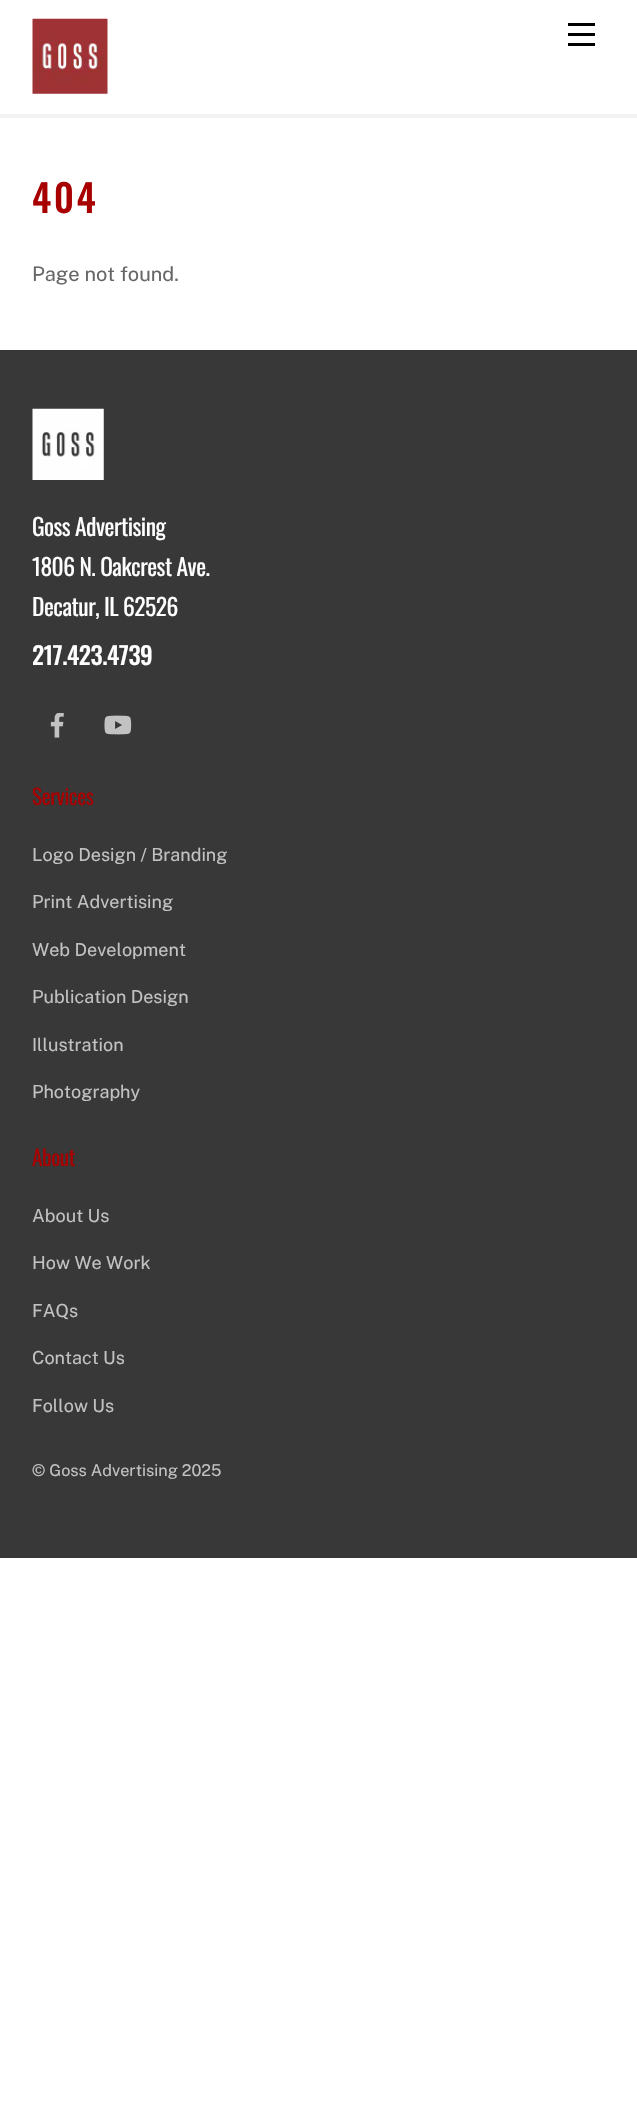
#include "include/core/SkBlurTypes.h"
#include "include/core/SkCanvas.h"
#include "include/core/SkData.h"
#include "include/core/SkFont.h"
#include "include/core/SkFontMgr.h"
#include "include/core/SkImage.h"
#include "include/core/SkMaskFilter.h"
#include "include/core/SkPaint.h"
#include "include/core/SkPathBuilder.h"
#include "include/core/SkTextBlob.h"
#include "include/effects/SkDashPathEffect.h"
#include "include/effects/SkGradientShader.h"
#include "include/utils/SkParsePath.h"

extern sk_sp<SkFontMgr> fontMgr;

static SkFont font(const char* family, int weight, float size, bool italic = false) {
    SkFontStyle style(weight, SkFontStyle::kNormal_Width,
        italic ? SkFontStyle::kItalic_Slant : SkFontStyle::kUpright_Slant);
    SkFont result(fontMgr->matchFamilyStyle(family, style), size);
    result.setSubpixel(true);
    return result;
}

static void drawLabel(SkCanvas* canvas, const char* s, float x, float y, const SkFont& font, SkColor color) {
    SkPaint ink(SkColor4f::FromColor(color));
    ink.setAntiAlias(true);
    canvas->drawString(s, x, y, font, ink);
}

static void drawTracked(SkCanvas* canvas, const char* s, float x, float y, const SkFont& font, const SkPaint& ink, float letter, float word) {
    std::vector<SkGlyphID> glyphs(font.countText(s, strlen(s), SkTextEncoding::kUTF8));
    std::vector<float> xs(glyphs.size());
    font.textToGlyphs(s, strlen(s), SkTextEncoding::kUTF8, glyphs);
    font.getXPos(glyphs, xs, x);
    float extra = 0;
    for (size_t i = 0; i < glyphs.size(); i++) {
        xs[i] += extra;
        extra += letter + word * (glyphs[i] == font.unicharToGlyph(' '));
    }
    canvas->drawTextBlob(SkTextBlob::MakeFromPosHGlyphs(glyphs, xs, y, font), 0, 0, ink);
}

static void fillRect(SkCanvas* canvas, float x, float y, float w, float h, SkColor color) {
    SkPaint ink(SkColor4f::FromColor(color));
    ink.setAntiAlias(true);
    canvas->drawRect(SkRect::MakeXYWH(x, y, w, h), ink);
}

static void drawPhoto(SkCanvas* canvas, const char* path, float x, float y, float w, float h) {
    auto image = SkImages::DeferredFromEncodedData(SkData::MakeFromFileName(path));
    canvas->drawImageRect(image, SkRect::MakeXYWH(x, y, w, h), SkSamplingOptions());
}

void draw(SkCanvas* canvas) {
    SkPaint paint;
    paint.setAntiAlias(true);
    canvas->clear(0xFFFFFFFF);
    fillRect(canvas, 0, 114, 637, 4, 0xFFF2F2F2);
    drawPhoto(canvas, "assets/img1.png", 32, 18, 76, 76);
    fillRect(canvas, 568, 43, 27, 3, 0xFF000000);
    fillRect(canvas, 568, 23, 27, 3, 0xFF000000);
    fillRect(canvas, 568, 33, 27, 3, 0xFF000000);
    SkFont font1 = font("Oswald", 500, 38);
    paint.setColor(0xFFA80000);
    drawTracked(canvas, "404", 32, 213, font1, paint, 2.5f, 0);
    SkFont font2 = font("Public Sans", 400, 20);
    drawLabel(canvas, "Page not found.", 32, 281, font2, 0xFF666666);
    fillRect(canvas, 0, 351, 637, 1207, 0xFF383838);
    fillRect(canvas, 0, 350, 637, 1, 0xFF353535);
    drawPhoto(canvas, "assets/img2.png", 32, 408, 72, 72);
    SkFont font3 = font("Oswald", 400, 23.5f);
    paint.setColor(0xFFFFFFFF);
    drawTracked(canvas, "Goss Advertising", 32, 536, font3, paint, -0.5f, 0);
    drawTracked(canvas, "1806 N. Oakcrest Ave.", 32, 576, font3, paint, -0.5f, 0);
    drawTracked(canvas, "Decatur, IL 62526", 32, 616, font3, paint, -0.5f, 0);
    SkFont font4 = font("Oswald", 500, 24.5f);
    drawTracked(canvas, "217.423.4739", 32, 665, font4, paint, -0.5f, 0);
    drawPhoto(canvas, "assets/img3.png", 50, 713, 14, 25);
    drawPhoto(canvas, "assets/img4.png", 104, 715, 28, 20);
    SkFont font5 = font("Oswald", 400, 21.5f);
    paint.setColor(0xFFA80000);
    drawTracked(canvas, "Services", 32, 805, font5, paint, -0.5f, 0);
    SkFont font6 = font("Public Sans", 400, 18);
    drawLabel(canvas, "Logo Design / Branding", 32, 861, font6, 0xFFC2C2C2);
    drawLabel(canvas, "Print Advertising", 32, 908, font6, 0xFFC2C2C2);
    drawLabel(canvas, "Web Development", 32, 956, font6, 0xFFC2C2C2);
    drawLabel(canvas, "Publication Design", 32, 1003, font6, 0xFFC2C2C2);
    drawLabel(canvas, "Illustration", 32, 1051, font6, 0xFFC2C2C2);
    drawLabel(canvas, "Photography", 32, 1098, font6, 0xFFC2C2C2);
    drawTracked(canvas, "About", 32, 1166, font5, paint, -0.5f, 0);
    drawLabel(canvas, "About Us", 32, 1222, font6, 0xFFC2C2C2);
    drawLabel(canvas, "How We Work", 32, 1269, font6, 0xFFC2C2C2);
    drawLabel(canvas, "FAQs", 32, 1317, font6, 0xFFC2C2C2);
    drawLabel(canvas, "Contact Us", 32, 1364, font6, 0xFFC2C2C2);
    drawLabel(canvas, "Follow Us", 32, 1412, font6, 0xFFC2C2C2);
    SkFont font7 = font("Public Sans", 400, 16.25f);
    drawLabel(canvas, "© Goss Advertising 2025", 32, 1476, font7, 0xFFC2C2C2);
}
